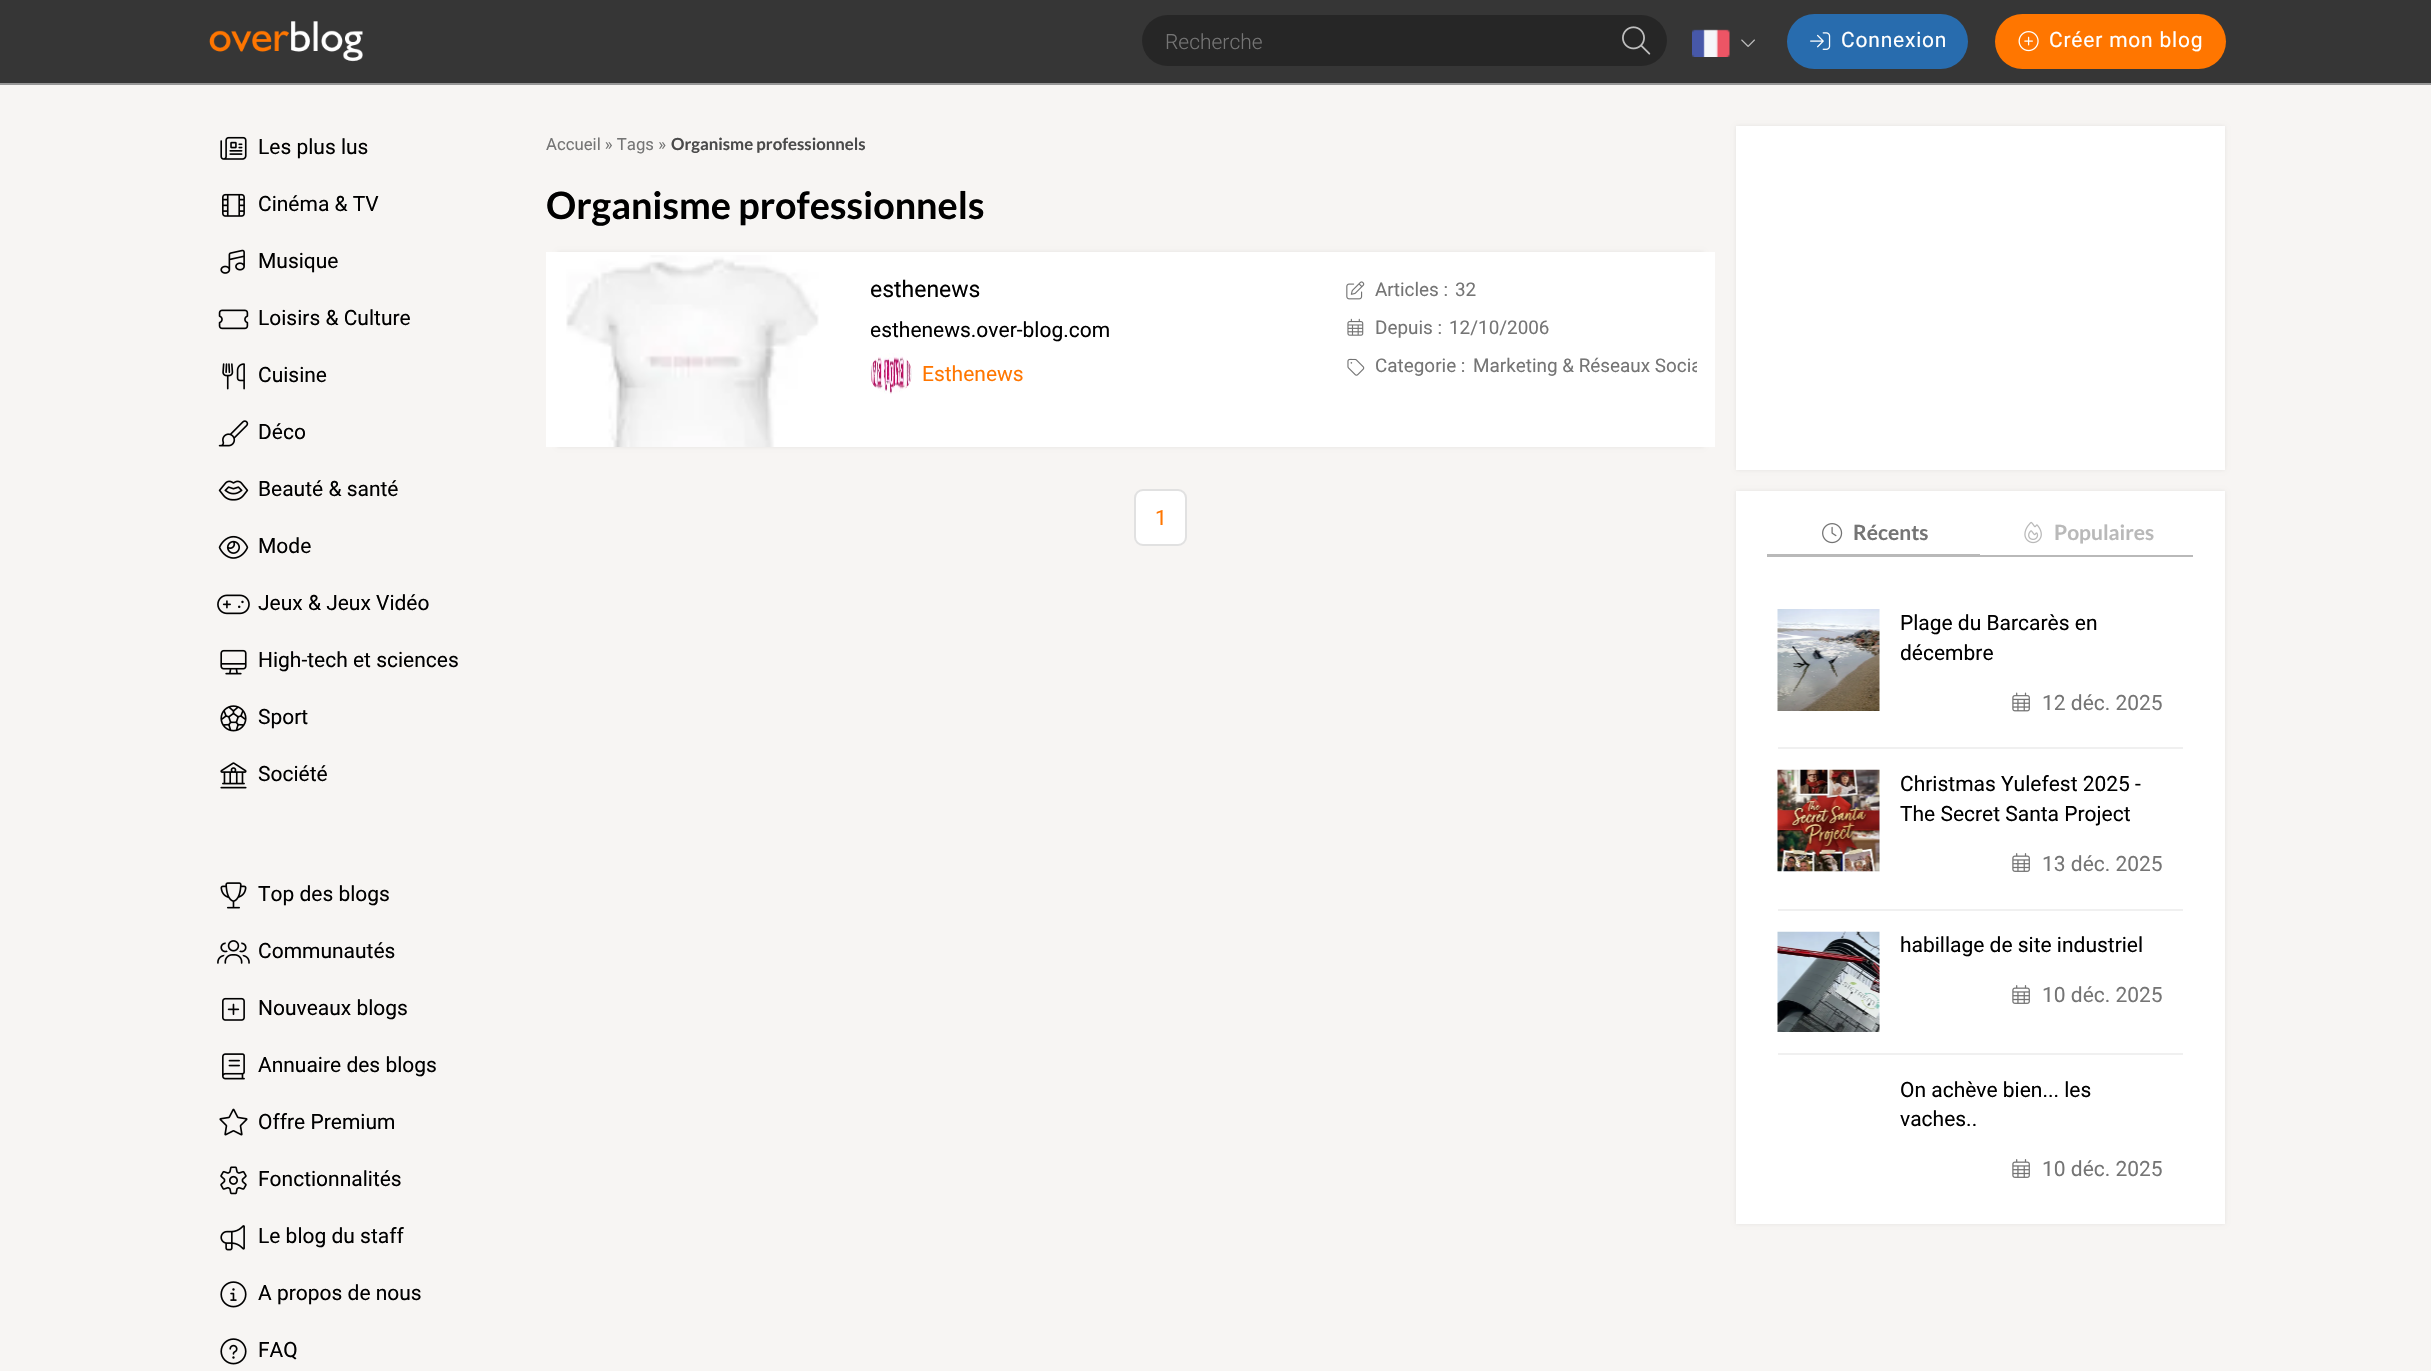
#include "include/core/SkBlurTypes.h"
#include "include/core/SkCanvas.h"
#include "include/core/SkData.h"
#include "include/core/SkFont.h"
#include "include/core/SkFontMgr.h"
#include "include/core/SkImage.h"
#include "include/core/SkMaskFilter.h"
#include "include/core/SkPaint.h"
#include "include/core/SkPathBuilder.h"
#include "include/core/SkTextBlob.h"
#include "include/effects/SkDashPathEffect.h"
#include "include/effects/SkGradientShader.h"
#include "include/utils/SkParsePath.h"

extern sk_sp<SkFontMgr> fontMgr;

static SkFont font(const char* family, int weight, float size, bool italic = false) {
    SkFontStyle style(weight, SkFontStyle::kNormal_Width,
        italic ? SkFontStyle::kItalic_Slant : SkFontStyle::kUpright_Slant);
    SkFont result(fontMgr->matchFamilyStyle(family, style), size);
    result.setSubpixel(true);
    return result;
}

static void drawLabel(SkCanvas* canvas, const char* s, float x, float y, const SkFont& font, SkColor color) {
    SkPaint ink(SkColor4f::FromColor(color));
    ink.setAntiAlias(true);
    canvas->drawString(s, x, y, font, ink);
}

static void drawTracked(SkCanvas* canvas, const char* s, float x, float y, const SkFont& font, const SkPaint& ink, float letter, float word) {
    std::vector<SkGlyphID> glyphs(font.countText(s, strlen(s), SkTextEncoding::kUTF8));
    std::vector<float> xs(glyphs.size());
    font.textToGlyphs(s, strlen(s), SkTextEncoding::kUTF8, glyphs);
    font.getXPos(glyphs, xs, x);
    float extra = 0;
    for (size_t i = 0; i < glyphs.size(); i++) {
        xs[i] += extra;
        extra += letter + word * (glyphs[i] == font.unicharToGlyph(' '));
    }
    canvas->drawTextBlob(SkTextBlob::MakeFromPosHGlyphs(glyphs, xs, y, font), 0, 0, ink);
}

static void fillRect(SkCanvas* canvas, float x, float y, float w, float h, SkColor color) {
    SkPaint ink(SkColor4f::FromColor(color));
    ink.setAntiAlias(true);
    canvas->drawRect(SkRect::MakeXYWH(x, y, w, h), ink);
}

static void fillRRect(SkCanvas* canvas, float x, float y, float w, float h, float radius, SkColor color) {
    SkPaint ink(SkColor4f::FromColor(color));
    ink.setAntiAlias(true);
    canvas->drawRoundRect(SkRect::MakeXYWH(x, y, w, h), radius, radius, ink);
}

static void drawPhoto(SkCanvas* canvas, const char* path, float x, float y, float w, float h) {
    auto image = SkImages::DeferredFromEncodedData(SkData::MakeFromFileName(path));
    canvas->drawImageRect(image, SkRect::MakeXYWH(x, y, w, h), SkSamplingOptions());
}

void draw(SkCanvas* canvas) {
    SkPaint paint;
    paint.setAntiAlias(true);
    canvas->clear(0xFFF7F5F3);
    fillRect(canvas, 0, 0, 2431, 83, 0xFF363636);
    fillRect(canvas, 0, 83, 2431, 2, 0xFF979797);
    drawPhoto(canvas, "assets/img1.png", 209, 21, 154, 41);
    fillRRect(canvas, 1142, 15, 525, 51, 25.5f, 0xFF262626);
    SkFont font1 = font("Roboto", 300, 21);
    drawLabel(canvas, "Recherche", 1165, 49, font1, 0xFF757575);
    drawPhoto(canvas, "assets/img2.png", 1622, 26, 29, 29);
    drawPhoto(canvas, "assets/img3.png", 1692, 29, 38, 28);
    drawPhoto(canvas, "assets/img4.png", 1741, 39, 14, 8);
    fillRRect(canvas, 1787, 14, 181, 55, 27.5f, 0xFF286CAE);
    drawPhoto(canvas, "assets/img5.png", 1810, 32, 21, 18);
    SkFont font2 = font("Roboto", 400, 21);
    paint.setColor(0xFFFFFFFF);
    drawTracked(canvas, "Connexion", 1841, 47, font2, paint, 0.8f, 0);
    fillRRect(canvas, 1995, 14, 231, 55, 27.5f, 0xFFFF7600);
    drawPhoto(canvas, "assets/img6.png", 2018, 31, 21, 21);
    drawTracked(canvas, "Créer mon blog", 2049, 47, font2, paint, 0.8f, 0);
    drawPhoto(canvas, "assets/img7.png", 220, 136, 27, 24);
    drawLabel(canvas, "Les plus lus", 258, 154, font2, 0xFF000000);
    drawPhoto(canvas, "assets/img8.png", 222, 193, 23, 24);
    drawLabel(canvas, "Cinéma & TV", 258, 211, font2, 0xFF000000);
    drawPhoto(canvas, "assets/img9.png", 220, 249, 25, 25);
    drawLabel(canvas, "Musique", 258, 268, font2, 0xFF000000);
    drawPhoto(canvas, "assets/img10.png", 218, 309, 31, 21);
    drawLabel(canvas, "Loisirs & Culture", 258, 325, font2, 0xFF000000);
    drawPhoto(canvas, "assets/img11.png", 222, 363, 23, 27);
    drawLabel(canvas, "Cuisine", 258, 382, font2, 0xFF000000);
    drawPhoto(canvas, "assets/img12.png", 218, 420, 31, 27);
    drawLabel(canvas, "Déco", 258, 439, font2, 0xFF000000);
    drawPhoto(canvas, "assets/img13.png", 218, 480, 31, 21);
    drawLabel(canvas, "Beauté & santé", 258, 496, font2, 0xFF000000);
    drawPhoto(canvas, "assets/img14.png", 218, 535, 31, 24);
    drawLabel(canvas, "Mode", 258, 553, font2, 0xFF000000);
    drawPhoto(canvas, "assets/img15.png", 217, 594, 33, 21);
    drawLabel(canvas, "Jeux & Jeux Vidéo", 258, 610, font2, 0xFF000000);
    drawPhoto(canvas, "assets/img16.png", 220, 649, 27, 26);
    drawLabel(canvas, "High-tech et sciences", 258, 667, font2, 0xFF000000);
    drawPhoto(canvas, "assets/img17.png", 220, 705, 27, 27);
    drawLabel(canvas, "Sport", 258, 724, font2, 0xFF000000);
    drawPhoto(canvas, "assets/img18.png", 220, 762, 27, 27);
    drawLabel(canvas, "Société", 258, 781, font2, 0xFF000000);
    drawPhoto(canvas, "assets/img19.png", 220, 882, 27, 27);
    drawLabel(canvas, "Top des blogs", 258, 901, font2, 0xFF000000);
    drawPhoto(canvas, "assets/img20.png", 217, 940, 33, 24);
    drawLabel(canvas, "Communautés", 258, 958, font2, 0xFF000000);
    drawPhoto(canvas, "assets/img21.png", 222, 997, 23, 24);
    drawLabel(canvas, "Nouveaux blogs", 258, 1015, font2, 0xFF000000);
    drawPhoto(canvas, "assets/img22.png", 222, 1053, 23, 27);
    drawLabel(canvas, "Annuaire des blogs", 258, 1072, font2, 0xFF000000);
    drawPhoto(canvas, "assets/img23.png", 219, 1108, 29, 28);
    drawLabel(canvas, "Offre Premium", 258, 1129, font2, 0xFF000000);
    drawPhoto(canvas, "assets/img24.png", 220, 1166, 27, 29);
    drawLabel(canvas, "Fonctionnalités", 258, 1186, font2, 0xFF000000);
    drawPhoto(canvas, "assets/img25.png", 220, 1225, 25, 26);
    drawLabel(canvas, "Le blog du staff", 258, 1243, font2, 0xFF000000);
    drawPhoto(canvas, "assets/img26.png", 220, 1281, 27, 27);
    drawLabel(canvas, "A propos de nous", 258, 1300, font2, 0xFF000000);
    drawPhoto(canvas, "assets/img27.png", 220, 1338, 27, 27);
    drawLabel(canvas, "FAQ", 258, 1357, font2, 0xFF000000);
    SkFont font3 = font("Roboto", 400, 16.75f);
    drawLabel(canvas, "Accueil » Tags »", 546, 150, font3, 0xFF757575);
    SkFont font4 = font("Lato", 700, 16.75f);
    drawLabel(canvas, "Organisme professionnels", 671, 150, font4, 0xFF4A4A4A);
    SkFont font5 = font("Lato", 700, 37.75f);
    drawLabel(canvas, "Organisme professionnels", 546, 219, font5, 0xFF000000);
    paint.setColor(0x12000000);
    paint.setMaskFilter(SkMaskFilter::MakeBlur(kNormal_SkBlurStyle, 2));
    canvas->drawRect(SkRect::MakeXYWH(557, 252, 1147, 195), paint);
    paint.setMaskFilter(nullptr);
    fillRect(canvas, 546, 252, 1169, 195, 0xFFFFFFFF);
    drawPhoto(canvas, "assets/img28.png", 566, 255, 253, 192);
    SkFont font6 = font("Roboto", 400, 23);
    drawLabel(canvas, "esthenews", 870, 297, font6, 0xFF000000);
    drawLabel(canvas, "esthenews.over-blog.com", 870, 337, font2, 0xFF000000);
    drawPhoto(canvas, "assets/img29.png", 870, 353, 42, 41);
    drawLabel(canvas, "Esthenews", 922, 381, font2, 0xFFFF7600);
    drawPhoto(canvas, "assets/img30.png", 1346, 281, 19, 19);
    SkFont font7 = font("Roboto", 400, 18.9f);
    drawLabel(canvas, "Articles :", 1375, 296, font7, 0xFF757575);
    drawLabel(canvas, "32", 1455, 296, font7, 0xFF757575);
    drawPhoto(canvas, "assets/img31.png", 1347, 318, 17, 18);
    drawLabel(canvas, "Depuis :", 1375, 334, font7, 0xFF757575);
    drawLabel(canvas, "12/10/2006", 1449, 334, font7, 0xFF757575);
    drawPhoto(canvas, "assets/img32.png", 1347, 358, 18, 18);
    drawLabel(canvas, "Categorie :", 1375, 372, font7, 0xFF757575);
    canvas->save();
    canvas->clipRect(SkRect::MakeXYWH(1344, 347, 353, 39));
    drawLabel(canvas, "Marketing & Réseaux Socia", 1473, 372, font7, 0xFF757575);
    canvas->restore();
    paint.setColor(0xFFFFFFFF);
    canvas->drawRoundRect(SkRect::MakeXYWH(1135, 490, 51, 55), 8, 8, paint);
    paint.setStroke(true);
    paint.setStrokeWidth(2);
    paint.setColor(0xFFE1E1E1);
    canvas->drawRoundRect(SkRect::MakeXYWH(1135, 490, 51, 55), 8, 8, paint);
    drawLabel(canvas, "1", 1155, 525, font2, 0xFFFF7600);
    paint.setStroke(false);
    paint.setColor(0x12000000);
    paint.setMaskFilter(SkMaskFilter::MakeBlur(kNormal_SkBlurStyle, 2));
    canvas->drawRect(SkRect::MakeXYWH(1736, 126, 489, 344), paint);
    paint.setMaskFilter(nullptr);
    fillRect(canvas, 1736, 126, 489, 344, 0xFFFFFFFF);
    paint.setMaskFilter(SkMaskFilter::MakeBlur(kNormal_SkBlurStyle, 2));
    canvas->drawRect(SkRect::MakeXYWH(1736, 491, 489, 733), paint);
    paint.setMaskFilter(nullptr);
    fillRect(canvas, 1736, 491, 489, 733, 0xFFFFFFFF);
    fillRect(canvas, 1767, 554, 213, 3, 0xFFB9B9B9);
    drawPhoto(canvas, "assets/img33.png", 1822, 523, 21, 21);
    SkFont font8 = font("Lato", 700, 21);
    drawLabel(canvas, "Récents", 1853, 540, font8, 0xFF757575);
    fillRect(canvas, 1980, 555, 213, 2, 0xFFB9B9B9);
    drawPhoto(canvas, "assets/img34.png", 2024, 521, 18, 23);
    drawLabel(canvas, "Populaires", 2054, 540, font8, 0xFFB9B9B9);
    fillRect(canvas, 1778, 747, 405, 2, 0xFFF0F0F0);
    drawPhoto(canvas, "assets/img35.png", 1777, 609, 103, 102);
    drawLabel(canvas, "Plage du Barcarès en", 1900, 630, font2, 0xFF000000);
    drawLabel(canvas, "décembre", 1900, 660, font2, 0xFF000000);
    drawPhoto(canvas, "assets/img36.png", 2012, 692, 18, 20);
    drawLabel(canvas, "12 déc. 2025", 2042, 710, font2, 0xFF757575);
    fillRect(canvas, 1778, 909, 405, 2, 0xFFF0F0F0);
    drawPhoto(canvas, "assets/img37.png", 1777, 769, 103, 103);
    drawLabel(canvas, "Christmas Yulefest 2025 -", 1900, 791, font2, 0xFF000000);
    drawLabel(canvas, "The Secret Santa Project", 1900, 821, font2, 0xFF000000);
    drawPhoto(canvas, "assets/img38.png", 2012, 853, 18, 19);
    drawLabel(canvas, "13 déc. 2025", 2042, 871, font2, 0xFF757575);
    fillRect(canvas, 1778, 1053, 405, 2, 0xFFF0F0F0);
    drawPhoto(canvas, "assets/img39.png", 1777, 931, 103, 101);
    drawLabel(canvas, "habillage de site industriel", 1900, 952, font2, 0xFF000000);
    drawPhoto(canvas, "assets/img38.png", 2012, 985, 18, 19);
    drawLabel(canvas, "10 déc. 2025", 2042, 1002, font2, 0xFF757575);
    drawLabel(canvas, "On achève bien... les", 1900, 1097, font2, 0xFF000000);
    drawLabel(canvas, "vaches..", 1900, 1126, font2, 0xFF000000);
    drawPhoto(canvas, "assets/img38.png", 2012, 1159, 18, 19);
    drawLabel(canvas, "10 déc. 2025", 2042, 1176, font2, 0xFF757575);
}
